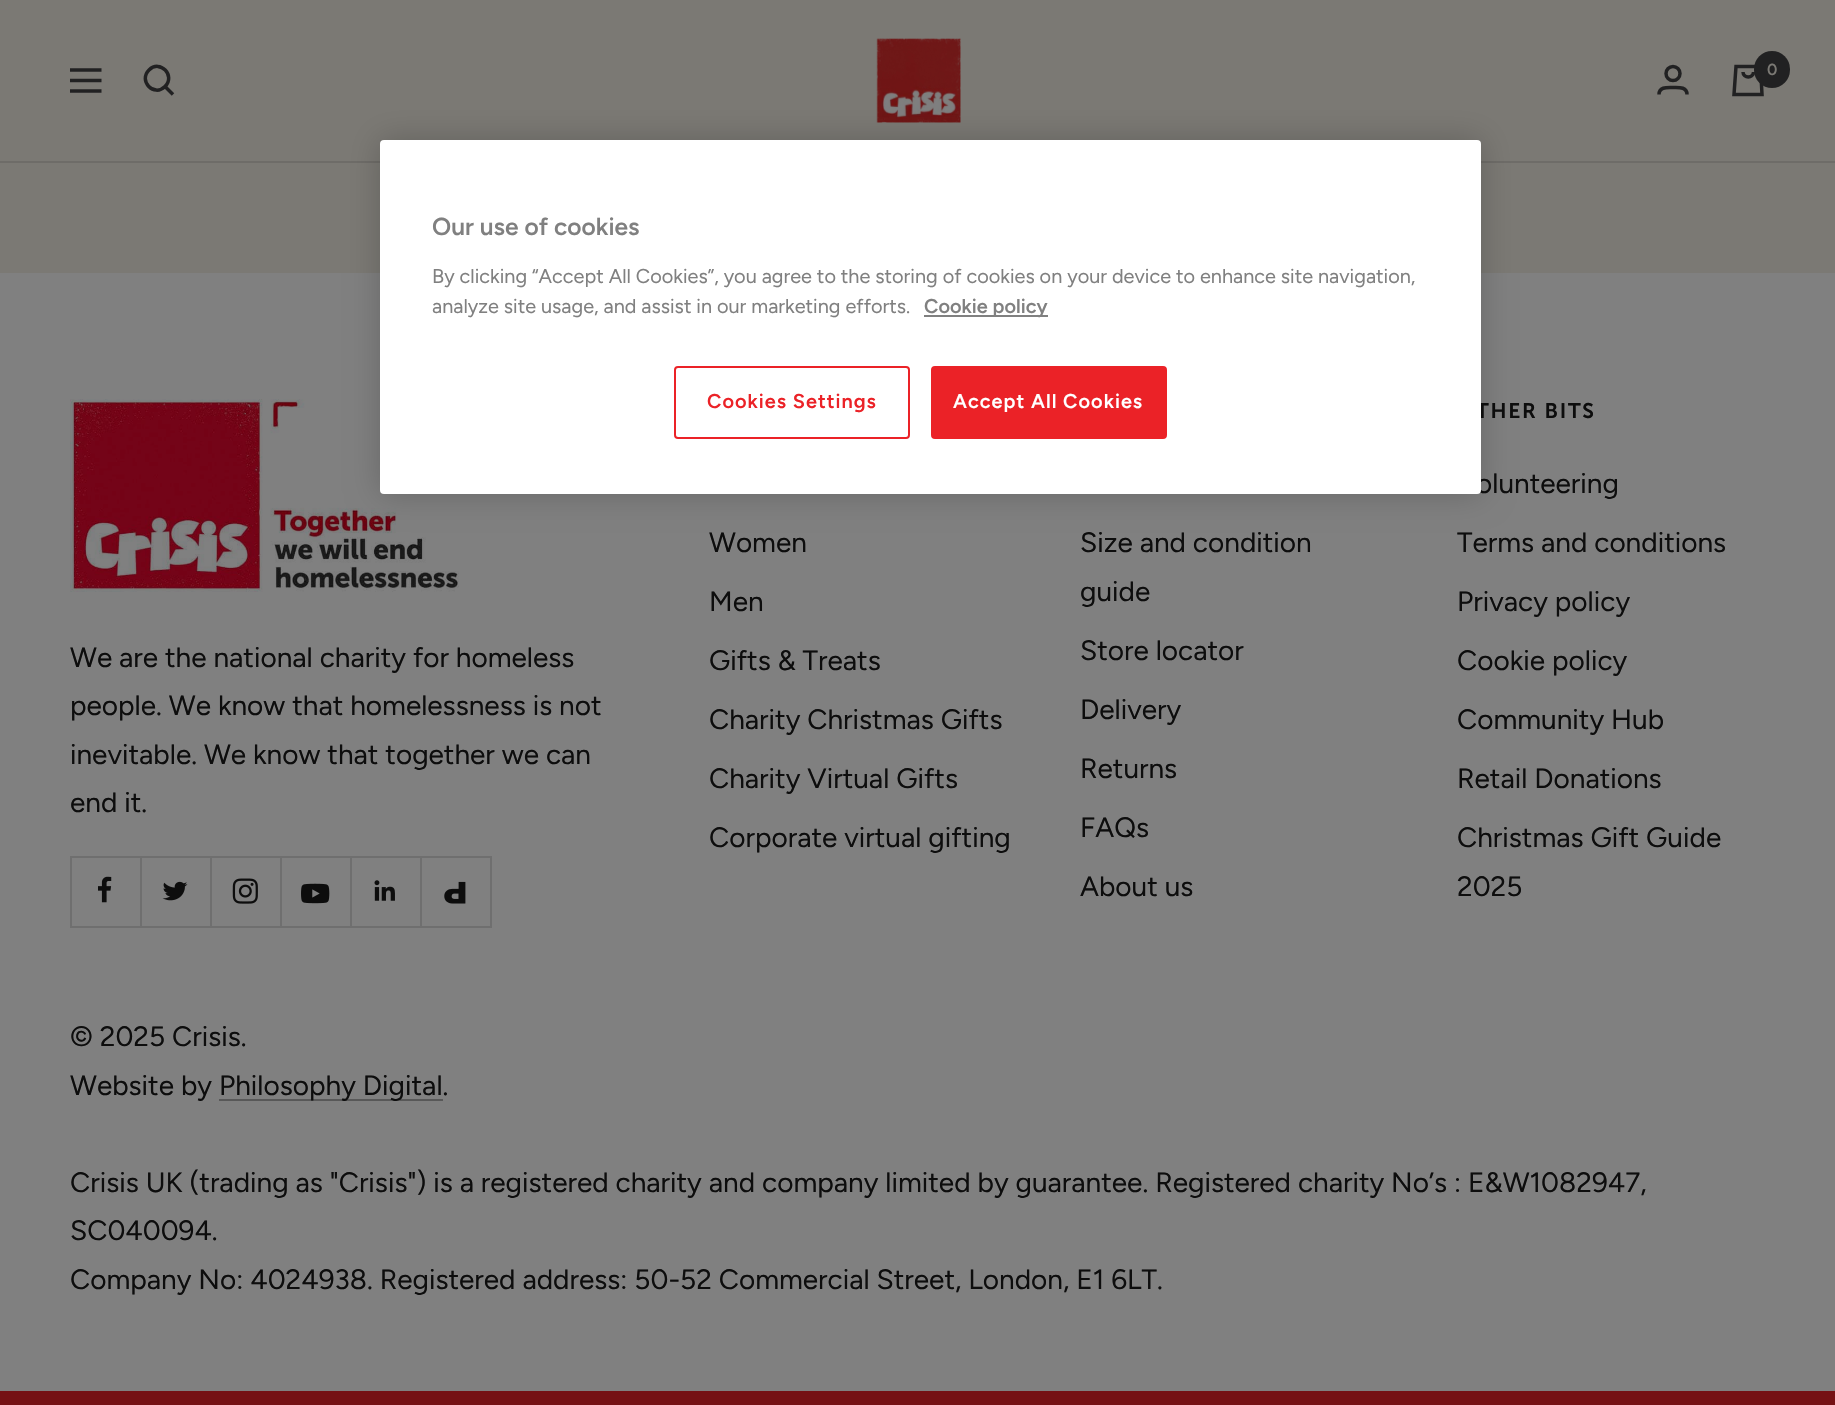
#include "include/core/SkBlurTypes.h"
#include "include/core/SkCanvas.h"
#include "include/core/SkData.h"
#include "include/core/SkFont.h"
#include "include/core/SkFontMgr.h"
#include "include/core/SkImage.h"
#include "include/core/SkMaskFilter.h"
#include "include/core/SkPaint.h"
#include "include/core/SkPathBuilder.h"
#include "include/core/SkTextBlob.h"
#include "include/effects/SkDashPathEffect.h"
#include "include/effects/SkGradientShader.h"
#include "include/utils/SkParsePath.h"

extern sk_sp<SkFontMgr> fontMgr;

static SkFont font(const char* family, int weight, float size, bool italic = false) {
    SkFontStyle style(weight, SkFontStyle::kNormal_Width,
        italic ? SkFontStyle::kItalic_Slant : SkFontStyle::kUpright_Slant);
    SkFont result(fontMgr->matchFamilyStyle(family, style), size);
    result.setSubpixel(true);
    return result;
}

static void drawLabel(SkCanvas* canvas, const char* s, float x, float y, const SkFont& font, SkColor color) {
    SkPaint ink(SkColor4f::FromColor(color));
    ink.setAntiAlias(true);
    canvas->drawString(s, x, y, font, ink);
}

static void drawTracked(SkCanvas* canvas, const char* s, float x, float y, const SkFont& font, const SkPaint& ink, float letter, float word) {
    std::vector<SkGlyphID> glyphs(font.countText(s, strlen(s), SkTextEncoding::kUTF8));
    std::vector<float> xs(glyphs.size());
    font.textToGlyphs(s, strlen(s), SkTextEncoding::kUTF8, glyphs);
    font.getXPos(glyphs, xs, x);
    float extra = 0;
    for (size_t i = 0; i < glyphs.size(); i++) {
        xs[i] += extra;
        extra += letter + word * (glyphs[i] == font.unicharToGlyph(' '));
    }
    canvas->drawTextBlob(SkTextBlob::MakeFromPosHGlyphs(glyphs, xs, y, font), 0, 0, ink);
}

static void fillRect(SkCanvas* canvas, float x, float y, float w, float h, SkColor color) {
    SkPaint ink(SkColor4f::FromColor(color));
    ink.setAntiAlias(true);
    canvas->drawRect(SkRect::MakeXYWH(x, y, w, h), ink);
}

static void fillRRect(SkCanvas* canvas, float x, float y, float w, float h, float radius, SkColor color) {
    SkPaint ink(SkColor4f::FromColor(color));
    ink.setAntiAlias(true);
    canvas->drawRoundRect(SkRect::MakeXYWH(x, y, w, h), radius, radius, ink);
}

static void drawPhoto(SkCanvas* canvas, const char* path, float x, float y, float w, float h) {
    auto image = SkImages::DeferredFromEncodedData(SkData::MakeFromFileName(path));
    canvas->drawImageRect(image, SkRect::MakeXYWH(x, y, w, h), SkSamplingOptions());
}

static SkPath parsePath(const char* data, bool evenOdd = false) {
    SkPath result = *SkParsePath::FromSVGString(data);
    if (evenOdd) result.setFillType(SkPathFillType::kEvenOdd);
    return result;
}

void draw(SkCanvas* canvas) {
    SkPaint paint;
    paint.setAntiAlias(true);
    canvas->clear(0xFF7B7974);
    paint.setColor(0xFF6E6C68);
    canvas->drawPath(parsePath("M0 161V163H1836V2V161Z"), paint);
    paint.setStroke(true);
    paint.setStrokeWidth(3.5f);
    paint.setColor(0xFF212122);
    canvas->drawPath(parsePath("M70 70H101.5M70 91H101.5ZM70 80.5H101.5Z"), paint);
    canvas->drawPath(parsePath("M165 86.5C176 75.5 160 59 149 70C138 81 154 97.5 165 86.5ZM165 86.5L173 94.5"), paint);
    drawPhoto(canvas, "assets/img1.png", 876, 38, 85, 85);
    canvas->drawCircle(1673, 73.5f, 7, paint);
    canvas->drawPath(parsePath("M1659 94.5C1659 86.5 1667.5 87.5 1673 87.5C1678.5 87.5 1687 86.5 1687 94.5"), paint);
    canvas->drawPath(parsePath("M1736 66.5H1760.5L1762 94.5H1734ZM1743 72C1743 78.5 1753.5 78.5 1753.5 72"), paint);
    fillRRect(canvas, 1754, 51, 36, 37, 18, 0xFF212122);
    SkFont font1 = font("Figtree", 600, 16);
    drawLabel(canvas, "0", 1767, 75, font1, 0xFF7B7974);
    fillRect(canvas, 0, 273, 1835, 1118, 0xFF808080);
    drawPhoto(canvas, "assets/img2.png", 70, 399, 392, 193);
    paint.setStroke(false);
    paint.setColor(0x33000000);
    paint.setMaskFilter(SkMaskFilter::MakeBlur(kNormal_SkBlurStyle, 16));
    canvas->drawRoundRect(SkRect::MakeXYWH(380, 140, 1101, 354), 4, 4, paint);
    paint.setMaskFilter(nullptr);
    SkFont font2 = font("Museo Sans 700", 600, 21);
    paint.setColor(0xFF0D0D0D);
    drawTracked(canvas, "THER BITS", 1476, 418, font2, paint, 1.75f, 0);
    SkFont font3 = font("Figtree", 400, 28);
    drawLabel(canvas, "olunteering", 1476, 493, font3, 0xFF0D0D0D);
    fillRRect(canvas, 380, 140, 1101, 354, 4, 0xFFFFFFFF);
    SkFont font4 = font("Figtree", 600, 24.5f);
    drawLabel(canvas, "Our use of cookies", 432, 235, font4, 0xFF808080);
    SkFont font5 = font("Figtree", 400, 19.9f);
    drawLabel(canvas, "By clicking “Accept All Cookies”, you agree to the storing of cookies on your device to enhance site navigation,", 432, 283, font5, 0xFF808080);
    drawLabel(canvas, "analyze site usage, and assist in our marketing efforts.", 432, 313, font5, 0xFF808080);
    fillRect(canvas, 924, 315, 124, 2, 0xFF808080);
    SkFont font6 = font("Figtree", 600, 19.9f);
    drawLabel(canvas, "Cookie policy", 924, 313, font6, 0xFF808080);
    paint.setStroke(true);
    paint.setStrokeWidth(2);
    paint.setColor(0xFFEB2227);
    canvas->drawRoundRect(SkRect::MakeXYWH(675, 367, 234, 71), 3, 3, paint);
    paint.setStroke(false);
    drawTracked(canvas, "Cookies Settings", 707, 408, font6, paint, 1, 0);
    canvas->drawRoundRect(SkRect::MakeXYWH(932, 367, 234, 71), 3, 3, paint);
    paint.setStroke(true);
    canvas->drawRoundRect(SkRect::MakeXYWH(932, 367, 234, 71), 3, 3, paint);
    paint.setStroke(false);
    paint.setColor(0xFFFFFFFF);
    drawTracked(canvas, "Accept All Cookies", 953, 408, font6, paint, 1, 0);
    fillRect(canvas, 0, 1391, 1835, 14, 0xFF751114);
    drawLabel(canvas, "We are the national charity for homeless", 70, 667, font3, 0xFF0D0D0D);
    drawLabel(canvas, "people. We know that homelessness is not", 70, 715, font3, 0xFF0D0D0D);
    drawLabel(canvas, "inevitable. We know that together we can", 70, 764, font3, 0xFF0D0D0D);
    drawLabel(canvas, "end it.", 70, 812, font3, 0xFF0D0D0D);
    paint.setColor(0xFF6F6F6F);
    canvas->drawPath(parsePath("M72 926V928H142V858H140V926Z"), paint);
    fillRect(canvas, 70, 926, 2, 2, 0xFF6F6F6F);
    canvas->drawPath(parsePath("M72 926H142V856H140V926Z"), paint);
    fillRect(canvas, 70, 856, 140, 2, 0xFF6F6F6F);
    fillRect(canvas, 70, 856, 2, 70, 0xFF6F6F6F);
    drawPhoto(canvas, "assets/img3.png", 98, 876, 14, 27);
    canvas->drawPath(parsePath("M142 926V928H212V858H210V926Z"), paint);
    canvas->drawPath(parsePath("M142 926H212V856H210V926Z"), paint);
    drawPhoto(canvas, "assets/img4.png", 162, 881, 26, 20);
    canvas->drawPath(parsePath("M212 926V928H282V858H280V926Z"), paint);
    canvas->drawPath(parsePath("M212 926H282V856H280V926Z"), paint);
    fillRect(canvas, 210, 856, 140, 2, 0xFF6F6F6F);
    drawPhoto(canvas, "assets/img5.png", 232, 878, 26, 26);
    canvas->drawPath(parsePath("M282 926V928H352V858H350V926Z"), paint);
    canvas->drawPath(parsePath("M282 926H352V856H350V926Z"), paint);
    drawPhoto(canvas, "assets/img6.png", 301, 883, 29, 21);
    canvas->drawPath(parsePath("M352 926V928H422V858H420V926Z"), paint);
    canvas->drawPath(parsePath("M352 926H422V856H420V926Z"), paint);
    fillRect(canvas, 350, 856, 140, 2, 0xFF6F6F6F);
    drawPhoto(canvas, "assets/img7.png", 374, 880, 21, 21);
    canvas->drawPath(parsePath("M422 926V928H492V858H490V926Z"), paint);
    canvas->drawPath(parsePath("M422 926H492V856H490V926Z"), paint);
    drawPhoto(canvas, "assets/img8.png", 444, 881, 22, 23);
    drawLabel(canvas, "Women", 709, 552, font3, 0xFF0D0D0D);
    drawLabel(canvas, "Men", 709, 611, font3, 0xFF0D0D0D);
    drawLabel(canvas, "Gifts & Treats", 709, 670, font3, 0xFF0D0D0D);
    drawLabel(canvas, "Charity Christmas Gifts", 709, 729, font3, 0xFF0D0D0D);
    drawLabel(canvas, "Charity Virtual Gifts", 709, 788, font3, 0xFF0D0D0D);
    drawLabel(canvas, "Corporate virtual gifting", 709, 847, font3, 0xFF0D0D0D);
    drawLabel(canvas, "Size and condition", 1080, 552, font3, 0xFF0D0D0D);
    drawLabel(canvas, "guide", 1080, 601, font3, 0xFF0D0D0D);
    drawLabel(canvas, "Store locator", 1080, 660, font3, 0xFF0D0D0D);
    drawLabel(canvas, "Delivery", 1080, 719, font3, 0xFF0D0D0D);
    drawLabel(canvas, "Returns", 1080, 778, font3, 0xFF0D0D0D);
    drawLabel(canvas, "FAQs", 1080, 837, font3, 0xFF0D0D0D);
    drawLabel(canvas, "About us", 1080, 896, font3, 0xFF0D0D0D);
    drawLabel(canvas, "Terms and conditions", 1457, 552, font3, 0xFF0D0D0D);
    drawLabel(canvas, "Privacy policy", 1457, 611, font3, 0xFF0D0D0D);
    drawLabel(canvas, "Cookie policy", 1457, 670, font3, 0xFF0D0D0D);
    drawLabel(canvas, "Community Hub", 1457, 729, font3, 0xFF0D0D0D);
    drawLabel(canvas, "Retail Donations", 1457, 788, font3, 0xFF0D0D0D);
    drawLabel(canvas, "Christmas Gift Guide", 1457, 847, font3, 0xFF0D0D0D);
    drawLabel(canvas, "2025", 1457, 896, font3, 0xFF0D0D0D);
    drawLabel(canvas, "© 2025 Crisis.", 70, 1046, font3, 0xFF0D0D0D);
    drawLabel(canvas, "Website by", 70, 1095, font3, 0xFF0D0D0D);
    fillRect(canvas, 219, 1099, 224, 2, 0xFF585858);
    drawLabel(canvas, "Philosophy Digital.", 219, 1095, font3, 0xFF0D0D0D);
    drawLabel(canvas, "Crisis UK (trading as \"Crisis\") is a registered charity and company limited by guarantee. Registered charity No’s : E&W1082947,", 70, 1192, font3, 0xFF0D0D0D);
    drawLabel(canvas, "SC040094.", 70, 1240, font3, 0xFF0D0D0D);
    drawLabel(canvas, "Company No: 4024938. Registered address: 50-52 Commercial Street, London, E1 6LT.", 70, 1289, font3, 0xFF0D0D0D);
}
